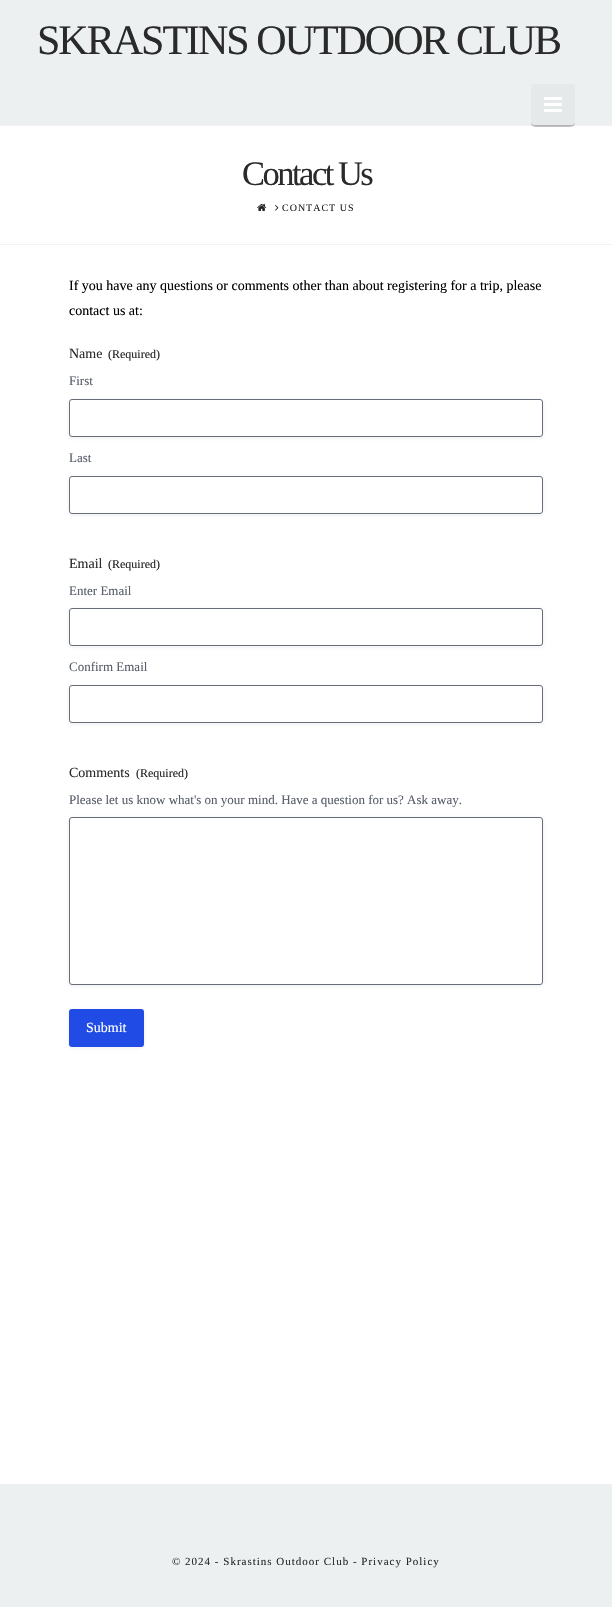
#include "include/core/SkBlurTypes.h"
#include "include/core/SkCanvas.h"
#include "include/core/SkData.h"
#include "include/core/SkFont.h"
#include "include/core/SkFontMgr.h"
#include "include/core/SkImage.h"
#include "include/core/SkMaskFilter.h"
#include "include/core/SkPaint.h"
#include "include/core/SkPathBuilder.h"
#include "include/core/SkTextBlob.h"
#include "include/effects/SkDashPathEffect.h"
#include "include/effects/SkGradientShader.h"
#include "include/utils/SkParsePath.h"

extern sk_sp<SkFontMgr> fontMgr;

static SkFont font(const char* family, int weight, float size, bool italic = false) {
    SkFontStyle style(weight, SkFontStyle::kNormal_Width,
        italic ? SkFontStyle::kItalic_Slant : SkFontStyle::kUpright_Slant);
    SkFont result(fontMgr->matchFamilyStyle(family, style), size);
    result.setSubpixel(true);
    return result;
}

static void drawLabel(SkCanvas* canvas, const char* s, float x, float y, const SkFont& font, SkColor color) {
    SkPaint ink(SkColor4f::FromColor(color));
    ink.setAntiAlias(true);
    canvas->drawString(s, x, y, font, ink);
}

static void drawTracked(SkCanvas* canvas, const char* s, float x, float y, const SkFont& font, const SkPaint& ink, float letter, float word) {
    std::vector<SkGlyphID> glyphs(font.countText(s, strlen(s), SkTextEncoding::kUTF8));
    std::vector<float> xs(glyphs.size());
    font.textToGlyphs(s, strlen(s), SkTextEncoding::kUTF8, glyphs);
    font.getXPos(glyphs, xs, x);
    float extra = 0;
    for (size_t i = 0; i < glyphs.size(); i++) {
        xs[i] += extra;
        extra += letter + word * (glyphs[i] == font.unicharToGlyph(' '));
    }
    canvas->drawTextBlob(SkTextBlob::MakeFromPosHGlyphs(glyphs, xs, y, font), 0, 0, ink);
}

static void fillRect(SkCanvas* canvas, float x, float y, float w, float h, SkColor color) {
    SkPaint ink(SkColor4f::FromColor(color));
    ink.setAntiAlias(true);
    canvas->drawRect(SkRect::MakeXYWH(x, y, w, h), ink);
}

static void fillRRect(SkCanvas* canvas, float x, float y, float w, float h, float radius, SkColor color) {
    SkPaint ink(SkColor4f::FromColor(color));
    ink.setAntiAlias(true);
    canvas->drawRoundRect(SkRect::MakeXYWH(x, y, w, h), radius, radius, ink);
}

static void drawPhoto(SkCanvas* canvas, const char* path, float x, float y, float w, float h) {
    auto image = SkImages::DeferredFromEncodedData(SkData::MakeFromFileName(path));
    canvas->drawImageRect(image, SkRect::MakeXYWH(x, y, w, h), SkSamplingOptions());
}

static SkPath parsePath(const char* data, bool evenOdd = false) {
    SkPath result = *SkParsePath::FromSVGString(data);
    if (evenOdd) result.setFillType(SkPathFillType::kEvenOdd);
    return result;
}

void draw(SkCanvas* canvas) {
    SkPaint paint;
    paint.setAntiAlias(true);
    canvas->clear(0xFFFFFFFF);
    fillRect(canvas, 0, 0, 612, 125, 0xFFECF0F1);
    SkFont font1 = font("Liberation Serif", 400, 42);
    paint.setColor(0xFF2A2A2A);
    drawTracked(canvas, "SKRASTINS OUTDOOR CLUB", 37, 54, font1, paint, -2, 0);
    fillRect(canvas, 0, 125, 612, 1, 0xFFF2F2F2);
    paint.setColor(0x40000000);
    canvas->drawPath(parsePath("M531 121C531 128 535 127 541 127H565C571 127 575 128 575 121C575 123 573 125 571 125H535C533 125 531 123 531 121Z"), paint);
    fillRRect(canvas, 531, 84, 44, 41, 4, 0xFFE5E9EA);
    drawPhoto(canvas, "assets/img1.png", 544, 97, 18, 15);
    fillRect(canvas, 0, 244, 612, 1, 0xFFF2F2F2);
    SkFont font2 = font("Liberation Serif", 400, 34.5f);
    paint.setColor(0xFF2A2A2A);
    drawTracked(canvas, "Contact Us", 242, 185, font2, paint, -2.5f, 0);
    drawPhoto(canvas, "assets/img2.png", 257, 203, 10, 8);
    drawPhoto(canvas, "assets/img3.png", 275, 205, 4, 6);
    SkFont font3 = font("Liberation Serif", 400, 10);
    paint.setColor(0xFF222222);
    drawTracked(canvas, "CONTACT US", 282, 211, font3, paint, 1, 0);
    SkFont font4 = font("Liberation Serif", 400, 14);
    drawLabel(canvas, "If you have any questions or comments other than about registering for a trip, please", 69, 290, font4, 0xFF000000);
    drawLabel(canvas, "contact us at:", 69, 315, font4, 0xFF000000);
    drawLabel(canvas, "Name", 69, 358, font4, 0xFF2A2A2A);
    SkFont font5 = font("Liberation Serif", 400, 12);
    drawLabel(canvas, "(Required)", 108, 358, font5, 0xFF222222);
    SkFont font6 = font("Liberation Serif", 400, 13);
    drawLabel(canvas, "First", 69, 385, font6, 0xFF585E6A);
    paint.setColor(0x14121961);
    paint.setMaskFilter(SkMaskFilter::MakeBlur(kNormal_SkBlurStyle, 2));
    canvas->drawRoundRect(SkRect::MakeXYWH(69, 400, 474, 38), 3, 3, paint);
    paint.setMaskFilter(nullptr);
    paint.setColor(0xFFFFFFFF);
    canvas->drawRoundRect(SkRect::MakeXYWH(69.5f, 399.5f, 473, 37), 2.5f, 2.5f, paint);
    paint.setStroke(true);
    paint.setStrokeWidth(1);
    paint.setColor(0xFF686E77);
    canvas->drawRoundRect(SkRect::MakeXYWH(69.5f, 399.5f, 473, 37), 2.5f, 2.5f, paint);
    drawLabel(canvas, "Last", 69, 462, font6, 0xFF585E6A);
    paint.setStroke(false);
    paint.setColor(0x14121961);
    paint.setMaskFilter(SkMaskFilter::MakeBlur(kNormal_SkBlurStyle, 2));
    canvas->drawRoundRect(SkRect::MakeXYWH(69, 477, 474, 38), 3, 3, paint);
    paint.setMaskFilter(nullptr);
    paint.setColor(0xFFFFFFFF);
    canvas->drawRoundRect(SkRect::MakeXYWH(69.5f, 476.5f, 473, 37), 2.5f, 2.5f, paint);
    paint.setStroke(true);
    paint.setColor(0xFF686E77);
    canvas->drawRoundRect(SkRect::MakeXYWH(69.5f, 476.5f, 473, 37), 2.5f, 2.5f, paint);
    drawLabel(canvas, "Email", 69, 568, font4, 0xFF2A2A2A);
    drawLabel(canvas, "(Required)", 108, 568, font5, 0xFF222222);
    drawLabel(canvas, "Enter Email", 69, 595, font6, 0xFF585E6A);
    paint.setStroke(false);
    paint.setColor(0x14121961);
    paint.setMaskFilter(SkMaskFilter::MakeBlur(kNormal_SkBlurStyle, 2));
    canvas->drawRoundRect(SkRect::MakeXYWH(69, 609, 474, 38), 3, 3, paint);
    paint.setMaskFilter(nullptr);
    paint.setColor(0xFFFFFFFF);
    canvas->drawRoundRect(SkRect::MakeXYWH(69.5f, 608.5f, 473, 37), 2.5f, 2.5f, paint);
    paint.setStroke(true);
    paint.setColor(0xFF686E77);
    canvas->drawRoundRect(SkRect::MakeXYWH(69.5f, 608.5f, 473, 37), 2.5f, 2.5f, paint);
    drawLabel(canvas, "Confirm Email", 69, 671, font6, 0xFF585E6A);
    paint.setStroke(false);
    paint.setColor(0x14121961);
    paint.setMaskFilter(SkMaskFilter::MakeBlur(kNormal_SkBlurStyle, 2));
    canvas->drawRoundRect(SkRect::MakeXYWH(69, 686, 474, 38), 3, 3, paint);
    paint.setMaskFilter(nullptr);
    paint.setColor(0xFFFFFFFF);
    canvas->drawRoundRect(SkRect::MakeXYWH(69.5f, 685.5f, 473, 37), 2.5f, 2.5f, paint);
    paint.setStroke(true);
    paint.setColor(0xFF686E77);
    canvas->drawRoundRect(SkRect::MakeXYWH(69.5f, 685.5f, 473, 37), 2.5f, 2.5f, paint);
    drawLabel(canvas, "Comments", 69, 777, font4, 0xFF2A2A2A);
    drawLabel(canvas, "(Required)", 136, 777, font5, 0xFF222222);
    drawLabel(canvas, "Please let us know what's on your mind. Have a question for us? Ask away.", 69, 804, font6, 0xFF585E6A);
    paint.setStroke(false);
    paint.setColor(0x14121961);
    paint.setMaskFilter(SkMaskFilter::MakeBlur(kNormal_SkBlurStyle, 2));
    canvas->drawRoundRect(SkRect::MakeXYWH(69, 818, 474, 168), 3, 3, paint);
    paint.setMaskFilter(nullptr);
    paint.setColor(0xFFFFFFFF);
    canvas->drawRoundRect(SkRect::MakeXYWH(69.5f, 817.5f, 473, 167), 2.5f, 2.5f, paint);
    paint.setStroke(true);
    paint.setColor(0xFF686E77);
    canvas->drawRoundRect(SkRect::MakeXYWH(69.5f, 817.5f, 473, 167), 2.5f, 2.5f, paint);
    paint.setStroke(false);
    paint.setColor(0x14121961);
    paint.setMaskFilter(SkMaskFilter::MakeBlur(kNormal_SkBlurStyle, 2));
    canvas->drawRoundRect(SkRect::MakeXYWH(69, 1010, 75, 38), 3, 3, paint);
    paint.setMaskFilter(nullptr);
    fillRRect(canvas, 69, 1009, 75, 38, 3, 0xFF204CE5);
    drawLabel(canvas, "Submit", 86, 1032, font4, 0xFFFFFFFF);
    fillRect(canvas, 0, 1484, 612, 123, 0xFFECF0F1);
    SkFont font7 = font("Liberation Serif", 400, 11);
    paint.setColor(0xFF2A2A2A);
    drawTracked(canvas, "© 2024 - Skrastins Outdoor Club - Privacy Policy", 172, 1565, font7, paint, 1, 0);
}
